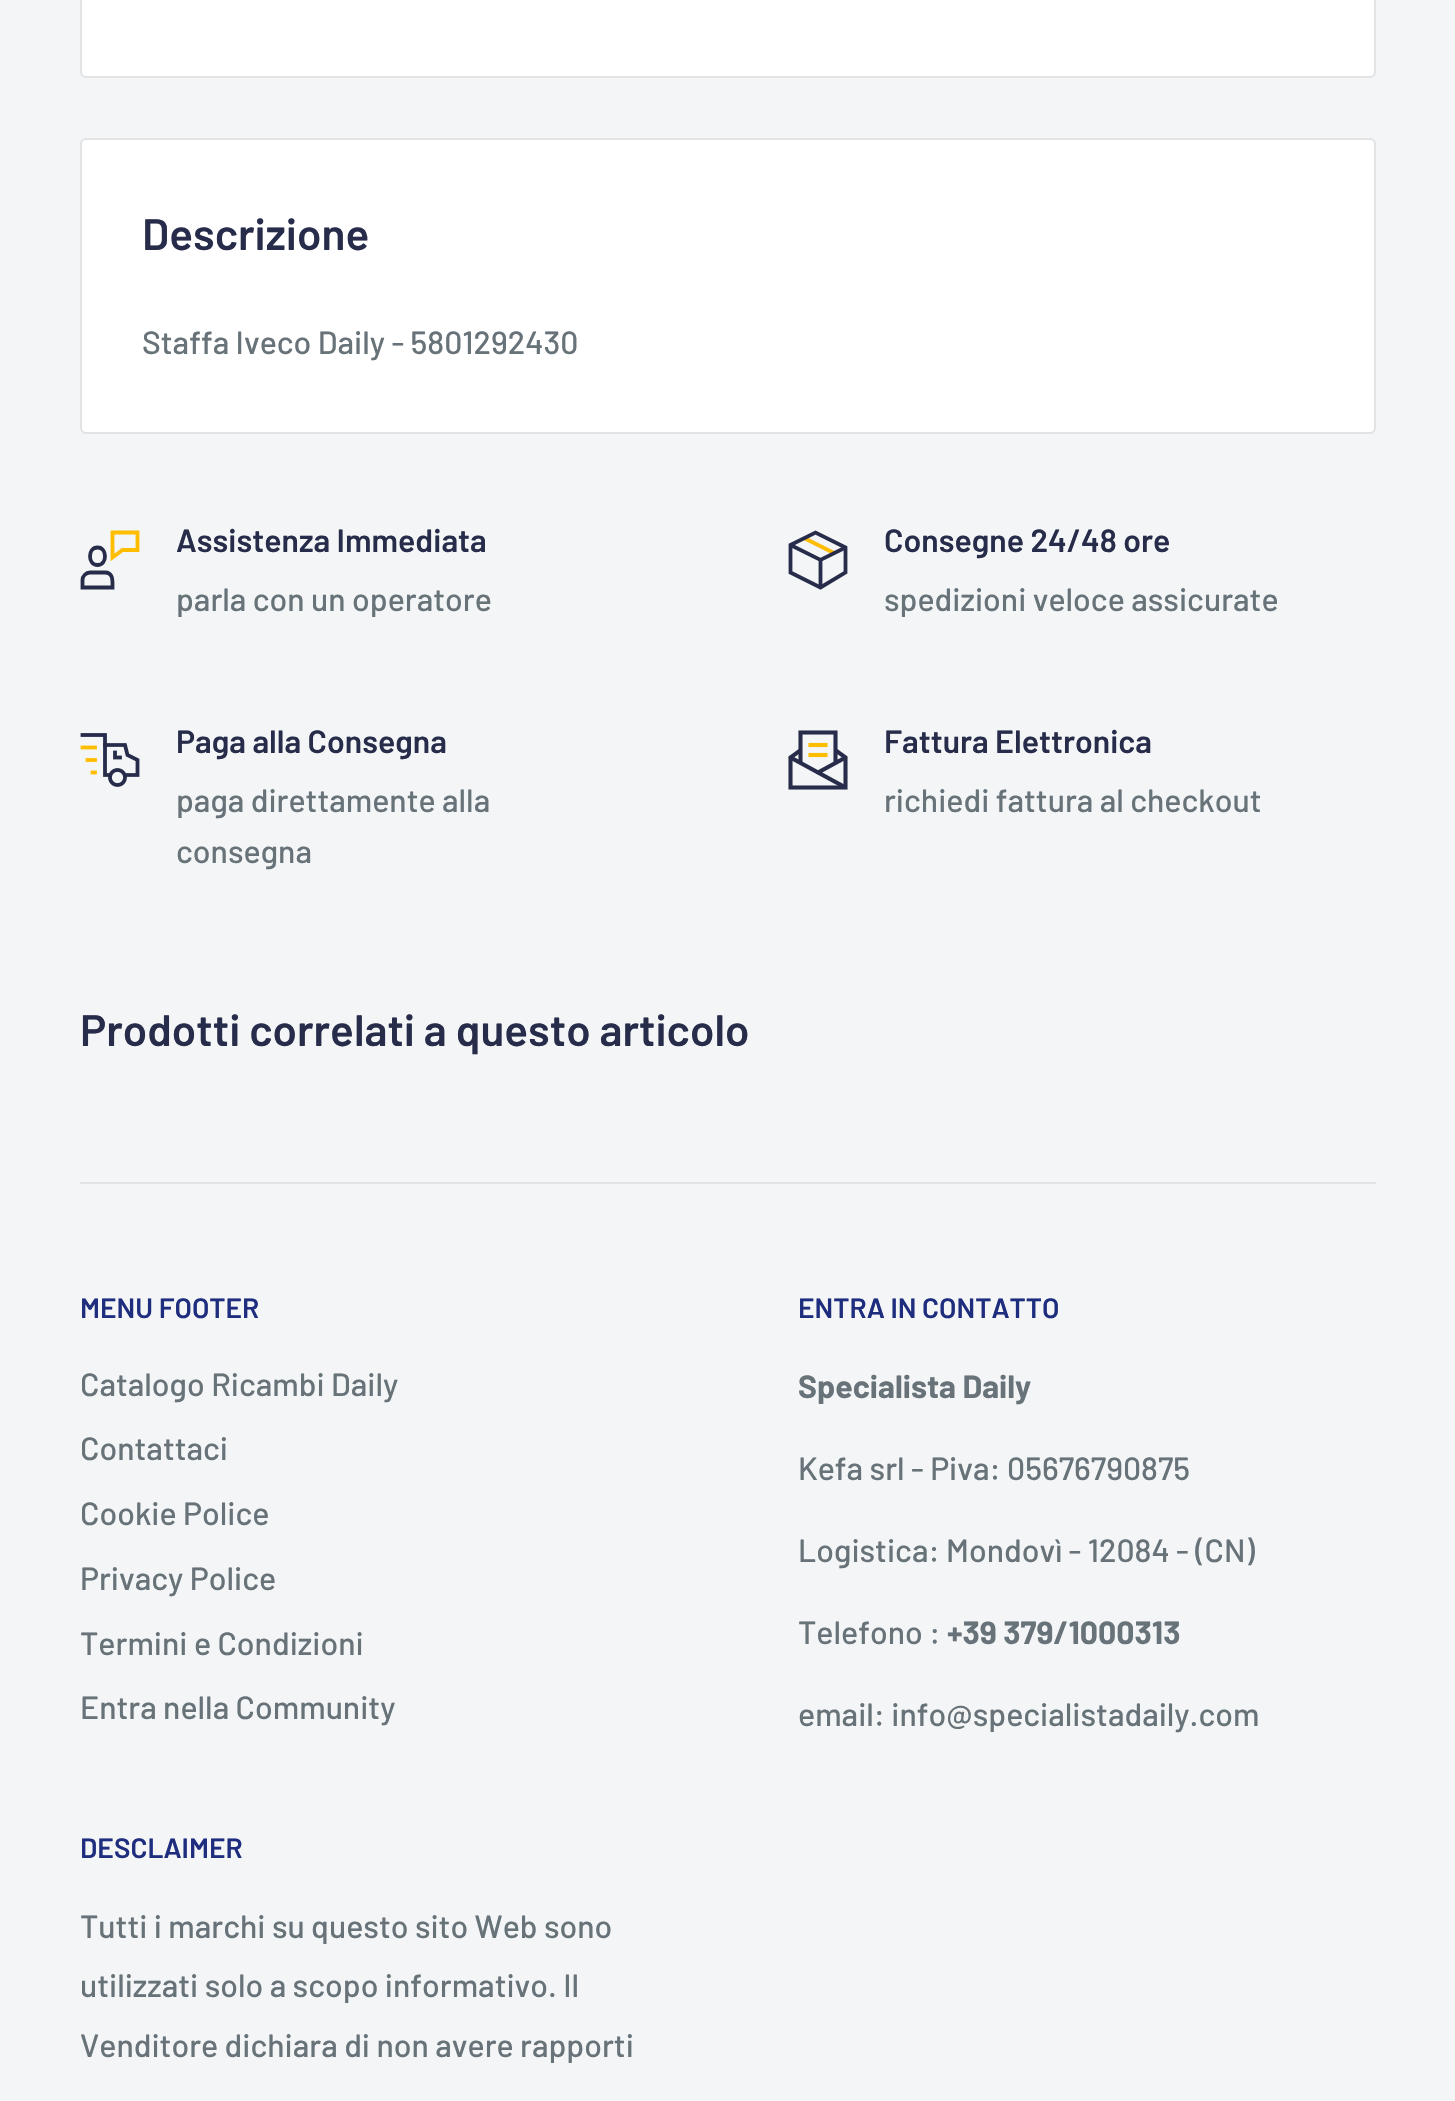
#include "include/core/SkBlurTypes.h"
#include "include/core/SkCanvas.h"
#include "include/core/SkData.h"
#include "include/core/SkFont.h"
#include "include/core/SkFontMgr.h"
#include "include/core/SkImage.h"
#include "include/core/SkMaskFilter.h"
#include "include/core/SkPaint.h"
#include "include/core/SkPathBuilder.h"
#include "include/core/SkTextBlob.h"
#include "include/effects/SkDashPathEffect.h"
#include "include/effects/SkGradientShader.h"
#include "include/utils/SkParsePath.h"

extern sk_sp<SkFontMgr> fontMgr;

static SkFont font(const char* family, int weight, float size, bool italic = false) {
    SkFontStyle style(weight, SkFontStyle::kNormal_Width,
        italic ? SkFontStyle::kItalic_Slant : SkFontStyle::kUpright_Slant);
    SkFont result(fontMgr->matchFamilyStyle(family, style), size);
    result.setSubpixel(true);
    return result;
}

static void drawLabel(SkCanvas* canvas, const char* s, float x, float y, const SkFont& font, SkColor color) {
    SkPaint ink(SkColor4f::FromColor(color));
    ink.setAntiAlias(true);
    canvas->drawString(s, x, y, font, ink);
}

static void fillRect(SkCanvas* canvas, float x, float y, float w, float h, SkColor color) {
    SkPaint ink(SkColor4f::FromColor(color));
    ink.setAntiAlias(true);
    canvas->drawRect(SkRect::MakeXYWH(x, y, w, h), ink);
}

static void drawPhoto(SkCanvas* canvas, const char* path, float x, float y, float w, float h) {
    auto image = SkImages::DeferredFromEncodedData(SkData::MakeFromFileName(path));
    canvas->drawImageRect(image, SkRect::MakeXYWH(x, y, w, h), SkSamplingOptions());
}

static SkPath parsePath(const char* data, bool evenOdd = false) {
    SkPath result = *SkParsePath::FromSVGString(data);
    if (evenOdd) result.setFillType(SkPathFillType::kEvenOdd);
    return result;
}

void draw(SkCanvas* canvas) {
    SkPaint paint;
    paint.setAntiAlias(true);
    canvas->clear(0xFFF3F5F6);
    paint.setColor(0xFFFFFFFF);
    canvas->drawRoundRect(SkRect::MakeXYWH(81, -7, 1294, 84), 5, 5, paint);
    paint.setStroke(true);
    paint.setStrokeWidth(2);
    paint.setColor(0xFFE1E3E4);
    canvas->drawRoundRect(SkRect::MakeXYWH(81, -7, 1294, 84), 5, 5, paint);
    paint.setStroke(false);
    paint.setColor(0xFFFFFFFF);
    canvas->drawRoundRect(SkRect::MakeXYWH(81, 139, 1294, 294), 5, 5, paint);
    paint.setStroke(true);
    paint.setColor(0xFFE1E3E4);
    canvas->drawRoundRect(SkRect::MakeXYWH(81, 139, 1294, 294), 5, 5, paint);
    SkFont font1 = font("Barlow", 600, 44);
    drawLabel(canvas, "Descrizione", 142, 250, font1, 0xFF262C49);
    SkFont font2 = font("Barlow", 500, 32);
    drawLabel(canvas, "Staffa Iveco Daily - 5801292430", 142, 354, font2, 0xFF677279);
    paint.setStrokeWidth(3.8f);
    paint.setStrokeCap(SkPaint::kSquare_Cap);
    paint.setColor(0xFF262C49);
    canvas->drawPath(parsePath("M105 572.5H90C86 572.5 82.5 576 82.5 580V587.5H112.5C112.5 581.5 113.5 572.5 105 572.5ZM97.5 565C87.5 565 87.5 547.5 97.5 547.5C107.5 547.5 107.5 565 97.5 565Z"), paint);
    paint.setColor(0xFFFFBD00);
    canvas->drawPath(parsePath("M112.5 532.5V557.5L122.5 550H137.5V532.5Z"), paint);
    SkFont font3 = font("Barlow", 600, 32);
    drawLabel(canvas, "Assistenza Immediata", 176, 552, font3, 0xFF262C49);
    drawLabel(canvas, "parla con un operatore", 176, 611, font2, 0xFF677279);
    paint.setStrokeCap(SkPaint::kButt_Cap);
    canvas->drawPath(parsePath("M804 538L834 553"), paint);
    paint.setColor(0xFF262C49);
    canvas->drawPath(parsePath("M845.5 547.5L820.5 560L790.5 545M820.5 560V587.5"), paint);
    paint.setStrokeCap(SkPaint::kSquare_Cap);
    canvas->drawPath(parsePath("M845.5 547.5V572.5L820.5 587.5L790.5 572.5V545L815.5 532.5Z"), paint);
    drawLabel(canvas, "Consegne 24/48 ore", 884, 552, font3, 0xFF262C49);
    drawLabel(canvas, "spedizioni veloce assicurate", 884, 611, font2, 0xFF677279);
    drawPhoto(canvas, "assets/img1.png", 80, 733, 60, 54);
    drawLabel(canvas, "Paga alla Consegna", 176, 753, font3, 0xFF262C49);
    drawLabel(canvas, "paga direttamente alla", 176, 812, font2, 0xFF677279);
    drawLabel(canvas, "consegna", 176, 863, font2, 0xFF677279);
    drawPhoto(canvas, "assets/img2.png", 788, 730, 60, 60);
    drawLabel(canvas, "Fattura Elettronica", 884, 753, font3, 0xFF262C49);
    drawLabel(canvas, "richiedi fattura al checkout", 884, 812, font2, 0xFF677279);
    drawLabel(canvas, "Prodotti correlati a questo articolo", 80, 1046, font1, 0xFF262C49);
    fillRect(canvas, 80, 1182, 1296, 2, 0xFFE1E3E4);
    SkFont font4 = font("Barlow", 600, 28);
    drawLabel(canvas, "MENU FOOTER", 80, 1318, font4, 0xFF1E2D7D);
    drawLabel(canvas, "Catalogo Ricambi Daily", 80, 1396, font2, 0xFF677279);
    drawLabel(canvas, "Contattaci", 80, 1460, font2, 0xFF677279);
    drawLabel(canvas, "Cookie Police", 80, 1525, font2, 0xFF677279);
    drawLabel(canvas, "Privacy Police", 80, 1590, font2, 0xFF677279);
    drawLabel(canvas, "Termini e Condizioni", 80, 1655, font2, 0xFF677279);
    drawLabel(canvas, "Entra nella Community", 80, 1719, font2, 0xFF677279);
    drawLabel(canvas, "ENTRA IN CONTATTO", 798, 1318, font4, 0xFF1E2D7D);
    SkFont font5 = font("Barlow", 700, 32);
    drawLabel(canvas, "Specialista Daily", 798, 1398, font5, 0xFF677279);
    drawLabel(canvas, "Kefa srl - Piva: 05676790875", 798, 1480, font2, 0xFF677279);
    drawLabel(canvas, "Logistica: Mondovì - 12084 - (CN)", 798, 1562, font2, 0xFF677279);
    drawLabel(canvas, "Telefono :", 798, 1644, font2, 0xFF677279);
    drawLabel(canvas, "+39 379/1000313", 947, 1644, font5, 0xFF677279);
    drawLabel(canvas, "email: info@specialistadaily.com", 798, 1726, font2, 0xFF677279);
    drawLabel(canvas, "DESCLAIMER", 80, 1858, font4, 0xFF1E2D7D);
    drawLabel(canvas, "Tutti i marchi su questo sito Web sono", 80, 1938, font2, 0xFF677279);
    drawLabel(canvas, "utilizzati solo a scopo informativo. Il", 80, 1997, font2, 0xFF677279);
    drawLabel(canvas, "Venditore dichiara di non avere rapporti", 80, 2057, font2, 0xFF677279);
}
